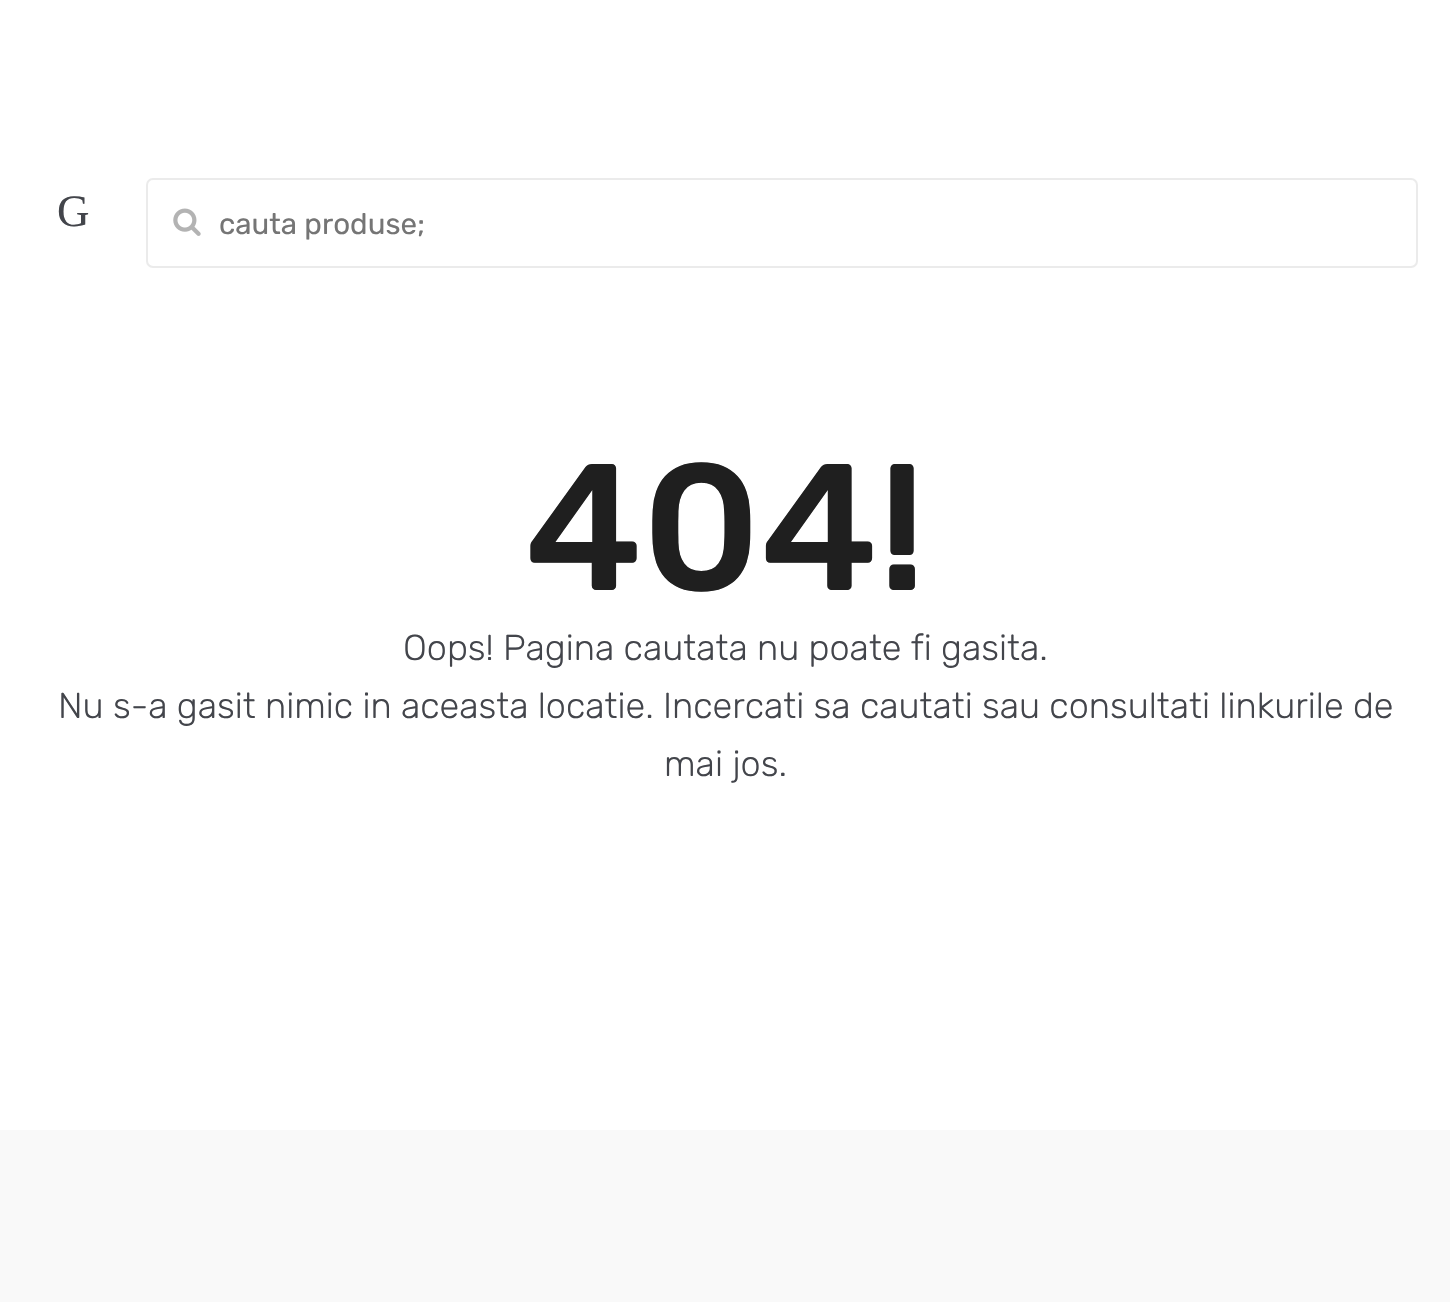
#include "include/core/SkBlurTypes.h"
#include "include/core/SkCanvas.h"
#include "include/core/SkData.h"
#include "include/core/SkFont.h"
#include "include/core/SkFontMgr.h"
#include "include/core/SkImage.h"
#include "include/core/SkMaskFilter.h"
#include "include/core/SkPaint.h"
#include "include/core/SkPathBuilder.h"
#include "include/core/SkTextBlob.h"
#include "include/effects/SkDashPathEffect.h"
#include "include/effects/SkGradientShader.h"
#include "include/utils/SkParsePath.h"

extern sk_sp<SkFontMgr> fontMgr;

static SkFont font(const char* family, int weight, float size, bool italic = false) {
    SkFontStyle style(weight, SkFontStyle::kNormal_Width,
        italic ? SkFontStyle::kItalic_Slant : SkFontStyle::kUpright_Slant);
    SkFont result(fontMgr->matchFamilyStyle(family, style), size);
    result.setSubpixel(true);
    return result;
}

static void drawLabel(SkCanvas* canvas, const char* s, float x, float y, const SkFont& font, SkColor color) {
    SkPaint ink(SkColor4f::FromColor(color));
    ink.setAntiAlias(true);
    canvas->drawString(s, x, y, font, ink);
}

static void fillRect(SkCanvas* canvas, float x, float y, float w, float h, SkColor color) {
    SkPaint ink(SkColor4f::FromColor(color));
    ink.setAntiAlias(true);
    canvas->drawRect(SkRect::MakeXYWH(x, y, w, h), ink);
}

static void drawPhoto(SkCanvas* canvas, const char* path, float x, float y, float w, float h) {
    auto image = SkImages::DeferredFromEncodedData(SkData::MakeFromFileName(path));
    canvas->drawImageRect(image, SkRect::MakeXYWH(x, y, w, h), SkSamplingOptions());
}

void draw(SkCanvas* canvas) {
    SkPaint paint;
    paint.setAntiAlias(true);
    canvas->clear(0xFFFFFFFF);
    SkFont font1 = font("Liberation Serif", 400, 45);
    drawLabel(canvas, "G", 57, 226, font1, 0xFF43454B);
    paint.setStroke(true);
    paint.setStrokeWidth(2);
    paint.setColor(0xFFEBEBEB);
    canvas->drawRoundRect(SkRect::MakeXYWH(147, 179, 1270, 88), 6, 6, paint);
    drawPhoto(canvas, "assets/img1.png", 173, 208, 28, 28);
    SkFont font2 = font("Rubik", 400, 29.5f);
    drawLabel(canvas, "cauta produse;", 219, 234, font2, 0xFF757575);
    SkFont font3 = font("Rubik", 500, 180);
    drawLabel(canvas, "404!", 525, 590, font3, 0xFF1F1F1F);
    SkFont font4 = font("Rubik", 300, 36);
    drawLabel(canvas, "Oops! Pagina cautata nu poate fi gasita.", 403, 660, font4, 0xFF43454B);
    drawLabel(canvas, "Nu s-a gasit nimic in aceasta locatie. Incercati sa cautati sau consultati linkurile de", 58, 718, font4, 0xFF43454B);
    drawLabel(canvas, "mai jos.", 664, 776, font4, 0xFF43454B);
    fillRect(canvas, 0, 1130, 1450, 172, 0xFFF9F9F9);
}
